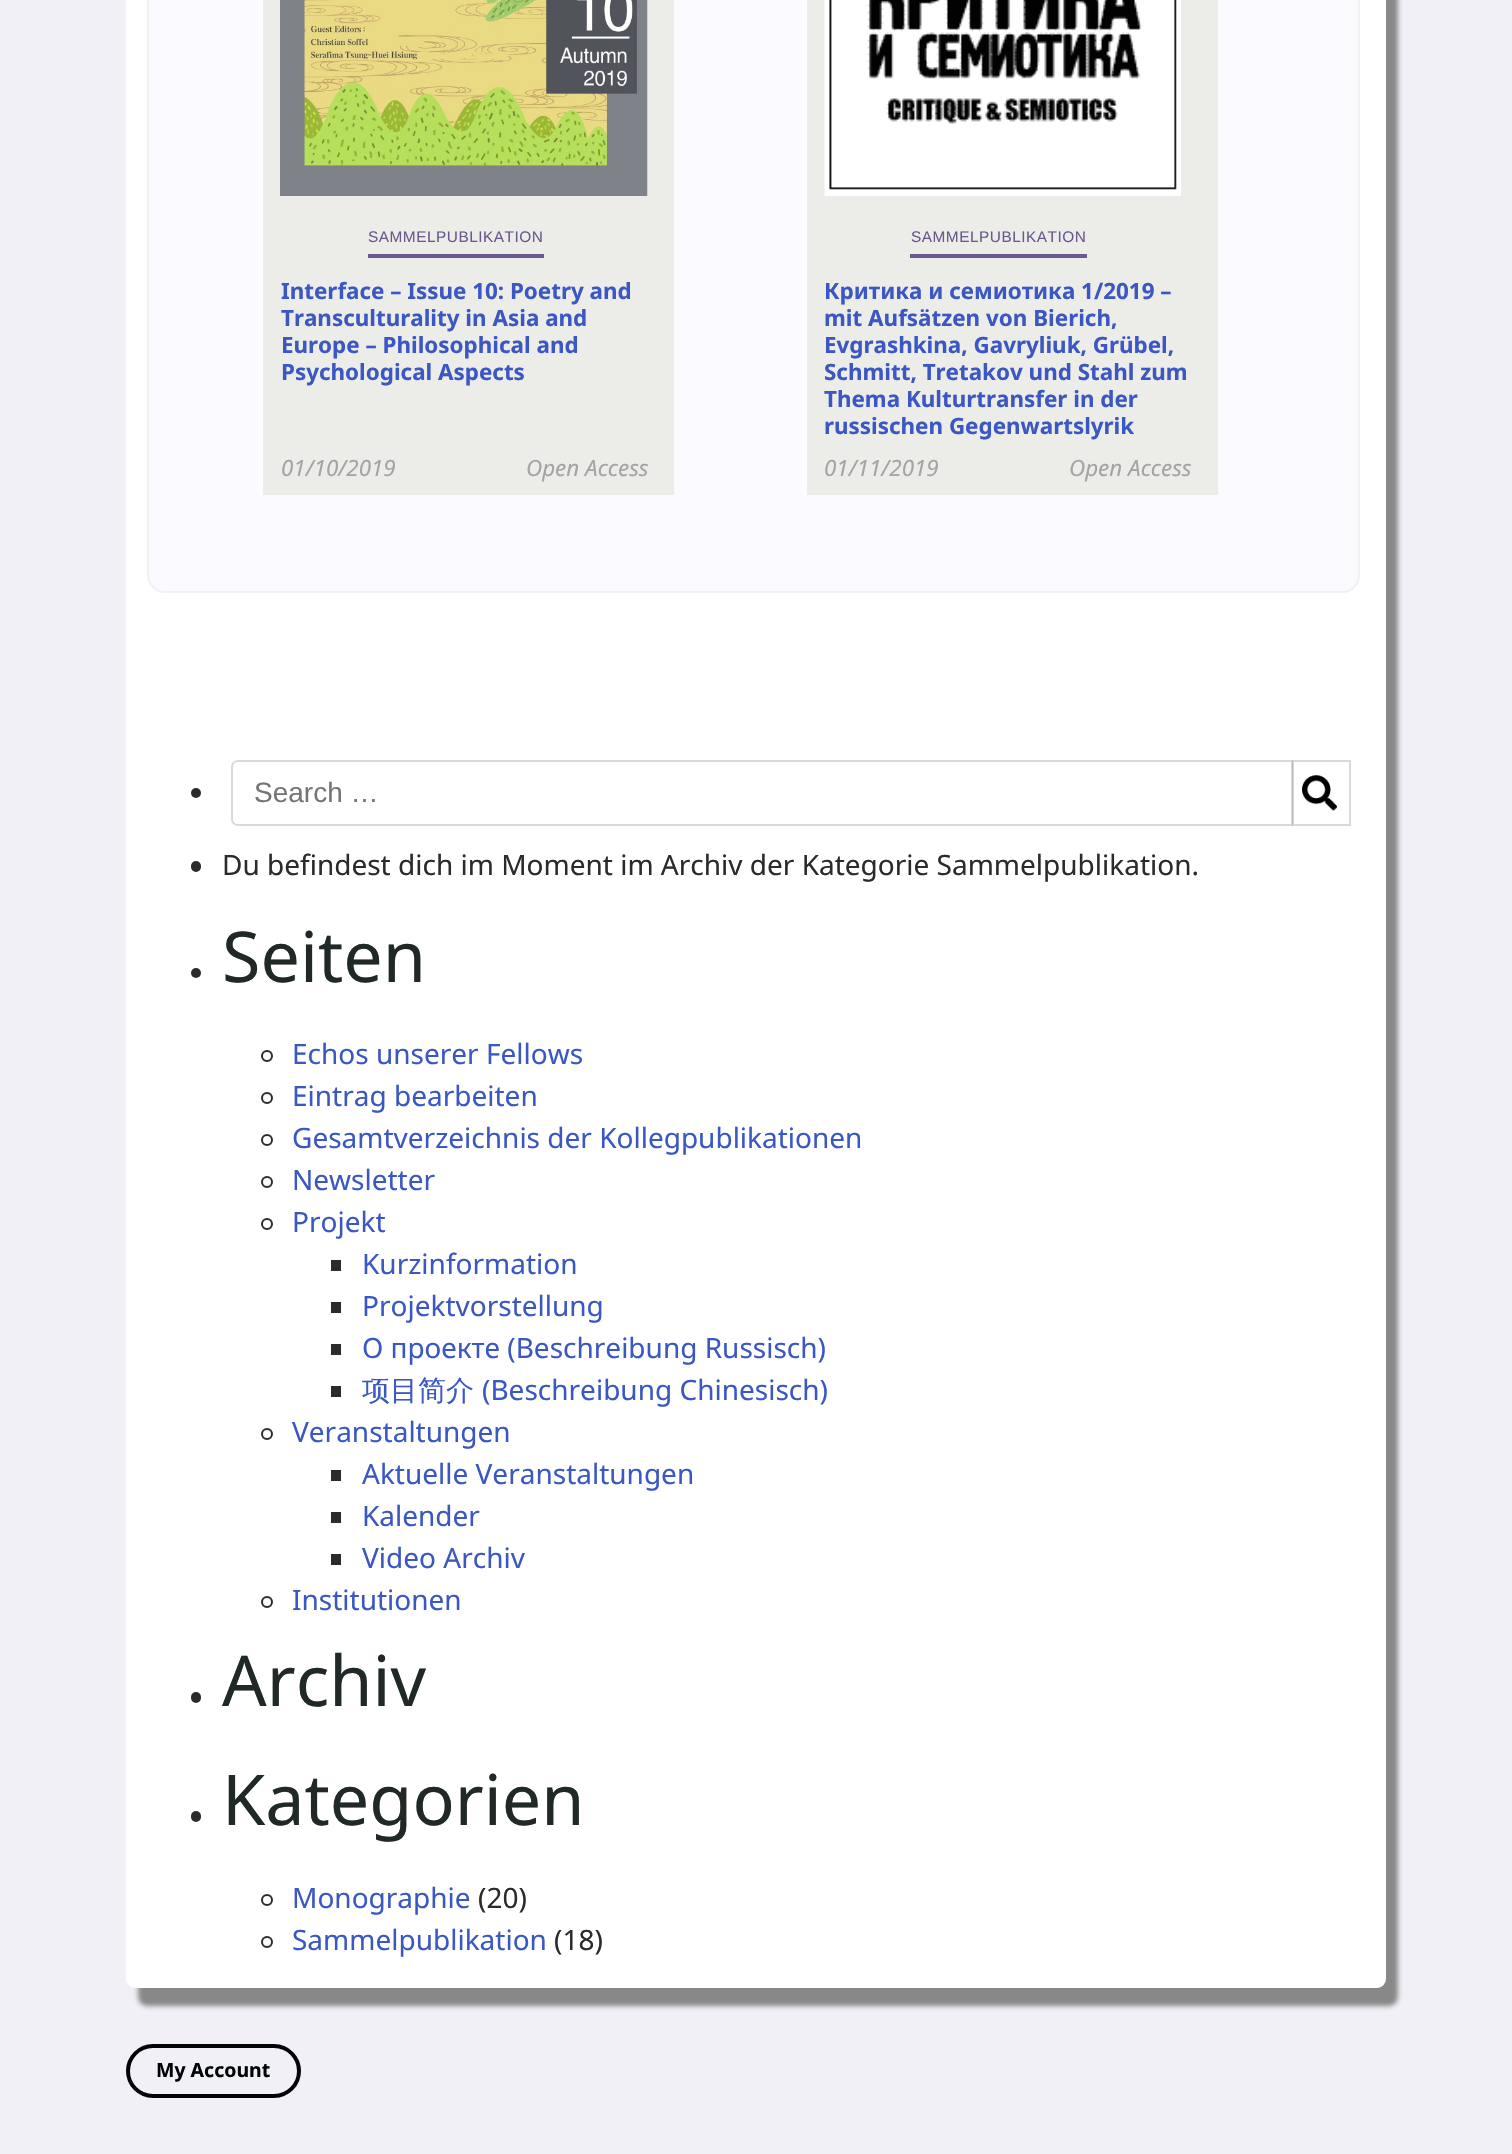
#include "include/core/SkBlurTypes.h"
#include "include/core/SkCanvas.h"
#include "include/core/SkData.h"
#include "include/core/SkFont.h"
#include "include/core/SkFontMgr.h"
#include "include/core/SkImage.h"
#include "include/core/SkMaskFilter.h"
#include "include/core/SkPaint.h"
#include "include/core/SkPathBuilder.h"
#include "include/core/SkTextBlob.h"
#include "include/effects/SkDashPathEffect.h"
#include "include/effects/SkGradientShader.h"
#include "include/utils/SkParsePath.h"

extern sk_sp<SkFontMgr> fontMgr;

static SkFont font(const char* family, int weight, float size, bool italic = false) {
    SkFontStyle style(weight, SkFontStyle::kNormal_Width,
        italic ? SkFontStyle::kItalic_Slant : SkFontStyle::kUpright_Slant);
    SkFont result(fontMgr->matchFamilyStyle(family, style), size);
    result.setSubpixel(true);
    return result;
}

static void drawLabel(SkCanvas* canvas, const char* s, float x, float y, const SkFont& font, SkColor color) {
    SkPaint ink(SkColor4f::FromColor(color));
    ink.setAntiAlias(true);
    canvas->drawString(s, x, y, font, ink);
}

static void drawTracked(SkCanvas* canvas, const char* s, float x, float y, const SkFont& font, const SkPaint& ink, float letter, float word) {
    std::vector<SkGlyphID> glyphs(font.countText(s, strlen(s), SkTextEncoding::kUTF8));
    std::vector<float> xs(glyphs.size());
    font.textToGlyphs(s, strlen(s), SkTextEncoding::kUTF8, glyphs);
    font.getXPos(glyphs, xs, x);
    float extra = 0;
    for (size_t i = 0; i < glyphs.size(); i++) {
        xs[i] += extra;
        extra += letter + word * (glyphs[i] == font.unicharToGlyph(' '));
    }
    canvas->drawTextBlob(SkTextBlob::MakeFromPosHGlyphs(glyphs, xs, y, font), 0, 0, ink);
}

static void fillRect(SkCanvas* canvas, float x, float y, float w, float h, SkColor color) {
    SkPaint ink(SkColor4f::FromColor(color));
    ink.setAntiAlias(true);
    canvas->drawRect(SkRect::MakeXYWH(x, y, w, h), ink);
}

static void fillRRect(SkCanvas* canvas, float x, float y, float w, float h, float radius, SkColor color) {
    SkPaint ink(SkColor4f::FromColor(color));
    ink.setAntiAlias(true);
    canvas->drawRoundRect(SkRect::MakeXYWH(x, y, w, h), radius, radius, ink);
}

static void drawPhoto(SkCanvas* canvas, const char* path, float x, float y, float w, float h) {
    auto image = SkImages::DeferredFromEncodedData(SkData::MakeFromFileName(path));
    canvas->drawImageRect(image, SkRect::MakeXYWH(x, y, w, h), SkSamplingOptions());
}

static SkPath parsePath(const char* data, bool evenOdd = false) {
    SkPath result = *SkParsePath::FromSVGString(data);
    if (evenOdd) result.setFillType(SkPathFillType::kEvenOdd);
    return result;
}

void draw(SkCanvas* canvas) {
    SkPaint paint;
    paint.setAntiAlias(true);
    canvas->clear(0xFFF1F0F7);
    paint.setColor(0xFF888888);
    paint.setMaskFilter(SkMaskFilter::MakeBlur(kNormal_SkBlurStyle, 2.5f));
    canvas->drawRoundRect(SkRect::MakeXYWH(138, -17, 1260, 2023), 9, 9, paint);
    paint.setMaskFilter(nullptr);
    fillRRect(canvas, 126, -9, 1260, 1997, 9, 0xFFFFFFFF);
    paint.setColor(0xFFFAFAFF);
    canvas->drawRoundRect(SkRect::MakeXYWH(148, -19, 1211, 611), 17, 17, paint);
    paint.setStroke(true);
    paint.setStrokeWidth(2);
    paint.setColor(0xFFF1F1F1);
    canvas->drawRoundRect(SkRect::MakeXYWH(148, -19, 1211, 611), 17, 17, paint);
    fillRect(canvas, 263, 0, 411, 495, 0xFFECEDE8);
    drawPhoto(canvas, "assets/img1.png", 280, 0, 368, 196);
    SkFont font1 = font("Liberation Sans", 400, 15.4f);
    paint.setStroke(false);
    paint.setColor(0xFF6A598F);
    drawTracked(canvas, "SAMMELPUBLIKATION", 368, 242, font1, paint, 0.5f, 0);
    fillRect(canvas, 368, 254, 176, 4, 0xFF6A598F);
    SkFont font2 = font("Noto Sans", 700, 22.4f);
    drawLabel(canvas, "Interface – Issue 10: Poetry and", 281, 299, font2, 0xFF3B57C4);
    drawLabel(canvas, "Transculturality in Asia and", 281, 326, font2, 0xFF3B57C4);
    drawLabel(canvas, "Europe – Philosophical and", 281, 353, font2, 0xFF3B57C4);
    drawLabel(canvas, "Psychological Aspects", 281, 380, font2, 0xFF3B57C4);
    SkFont font3 = font("Noto Sans", 400, 22.4f, true);
    drawLabel(canvas, "01/10/2019", 281, 476, font3, 0xFFA4A4A4);
    drawLabel(canvas, "Open Access", 526, 476, font3, 0xFFA4A4A4);
    fillRect(canvas, 807, 0, 411, 495, 0xFFECEDE8);
    drawPhoto(canvas, "assets/img2.png", 824, 0, 357, 196);
    drawTracked(canvas, "SAMMELPUBLIKATION", 911, 242, font1, paint, 0.5f, 0);
    fillRect(canvas, 910, 254, 177, 4, 0xFF6A598F);
    drawLabel(canvas, "Критика и семиотика 1/2019 –", 824, 299, font2, 0xFF3B57C4);
    drawLabel(canvas, "mit Aufsätzen von Bierich,", 824, 326, font2, 0xFF3B57C4);
    drawLabel(canvas, "Evgrashkina, Gavryliuk, Grübel,", 824, 353, font2, 0xFF3B57C4);
    drawLabel(canvas, "Schmitt, Tretakov und Stahl zum", 824, 380, font2, 0xFF3B57C4);
    drawLabel(canvas, "Thema Kulturtransfer in der", 824, 407, font2, 0xFF3B57C4);
    drawLabel(canvas, "russischen Gegenwartslyrik", 824, 434, font2, 0xFF3B57C4);
    drawLabel(canvas, "01/11/2019", 824, 476, font3, 0xFFA4A4A4);
    drawLabel(canvas, "Open Access", 1069, 476, font3, 0xFFA4A4A4);
    paint.setColor(0xFF292B2C);
    canvas->drawCircle(196, 793, 5, paint);
    paint.setStroke(true);
    paint.setColor(0xFFD9D9D9);
    canvas->drawPath(parsePath("M238 761H1292V825H238C234.5 825 232 822.5 232 819V767C232 763.5 234.5 761 238 761Z"), paint);
    SkFont font4 = font("Liberation Sans", 400, 28);
    drawLabel(canvas, "Search …", 254, 802, font4, 0xFF757575);
    paint.setColor(0x26000000);
    canvas->drawRect(SkRect::MakeXYWH(1293, 761, 57, 64), paint);
    drawPhoto(canvas, "assets/img3.png", 1302, 775, 35, 36);
    fillRRect(canvas, 191, 861, 10, 11, 5, 0xFF292B2C);
    SkFont font5 = font("Noto Sans", 400, 28);
    drawLabel(canvas, "Du befindest dich im Moment im Archiv der Kategorie Sammelpublikation.", 222, 875, font5, 0xFF292B2C);
    paint.setStroke(false);
    paint.setColor(0xFF292B2C);
    canvas->drawCircle(196, 973, 5, paint);
    SkFont font6 = font("Noto Sans", 400, 70);
    drawLabel(canvas, "Seiten", 222, 982, font6, 0xFF202828);
    paint.setStroke(true);
    canvas->drawCircle(267, 1056, 5, paint);
    drawLabel(canvas, "Echos unserer Fellows", 292, 1064, font5, 0xFF3B57C4);
    canvas->drawCircle(267, 1098, 5, paint);
    drawLabel(canvas, "Eintrag bearbeiten", 292, 1106, font5, 0xFF3B57C4);
    canvas->drawCircle(267, 1140, 5, paint);
    drawLabel(canvas, "Gesamtverzeichnis der Kollegpublikationen", 292, 1148, font5, 0xFF3B57C4);
    canvas->drawCircle(267, 1182, 5, paint);
    drawLabel(canvas, "Newsletter", 292, 1190, font5, 0xFF3B57C4);
    canvas->drawCircle(267, 1224, 5, paint);
    drawLabel(canvas, "Projekt", 292, 1232, font5, 0xFF3B57C4);
    fillRect(canvas, 331, 1260, 10, 11, 0xFF292B2C);
    drawLabel(canvas, "Kurzinformation", 362, 1274, font5, 0xFF3B57C4);
    fillRect(canvas, 331, 1302, 10, 11, 0xFF292B2C);
    drawLabel(canvas, "Projektvorstellung", 362, 1316, font5, 0xFF3B57C4);
    fillRect(canvas, 331, 1344, 10, 11, 0xFF292B2C);
    drawLabel(canvas, "О проекте (Beschreibung Russisch)", 362, 1358, font5, 0xFF3B57C4);
    fillRect(canvas, 331, 1386, 10, 11, 0xFF292B2C);
    SkFont font7 = font("WenQuanYi Zen Hei", 500, 28);
    drawLabel(canvas, "项目简介", 362, 1400, font7, 0xFF3B57C4);
    drawLabel(canvas, "(Beschreibung Chinesisch)", 482, 1400, font5, 0xFF3B57C4);
    canvas->drawCircle(267, 1434, 5, paint);
    drawLabel(canvas, "Veranstaltungen", 292, 1442, font5, 0xFF3B57C4);
    fillRect(canvas, 331, 1470, 10, 11, 0xFF292B2C);
    drawLabel(canvas, "Aktuelle Veranstaltungen", 362, 1484, font5, 0xFF3B57C4);
    fillRect(canvas, 331, 1512, 10, 11, 0xFF292B2C);
    drawLabel(canvas, "Kalender", 362, 1526, font5, 0xFF3B57C4);
    fillRect(canvas, 331, 1554, 10, 11, 0xFF292B2C);
    drawLabel(canvas, "Video Archiv", 362, 1568, font5, 0xFF3B57C4);
    canvas->drawCircle(267, 1602, 5, paint);
    drawLabel(canvas, "Institutionen", 292, 1610, font5, 0xFF3B57C4);
    fillRRect(canvas, 191, 1692, 10, 11, 5, 0xFF292B2C);
    drawLabel(canvas, "Archiv", 222, 1706, font6, 0xFF202828);
    fillRRect(canvas, 191, 1811, 10, 11, 5, 0xFF292B2C);
    drawLabel(canvas, "Kategorien", 222, 1825, font6, 0xFF202828);
    canvas->drawCircle(267, 1900, 5, paint);
    drawLabel(canvas, "Monographie", 292, 1908, font5, 0xFF3B57C4);
    drawLabel(canvas, "(20)", 478, 1908, font5, 0xFF292B2C);
    canvas->drawCircle(267, 1942, 5, paint);
    drawLabel(canvas, "Sammelpublikation", 292, 1950, font5, 0xFF3B57C4);
    drawLabel(canvas, "(18)", 554, 1950, font5, 0xFF292B2C);
    paint.setStrokeWidth(4);
    paint.setColor(0xFF010404);
    canvas->drawRoundRect(SkRect::MakeXYWH(128, 2046, 171, 50), 25, 25, paint);
    SkFont font8 = font("Noto Sans", 700, 19.5f);
    drawLabel(canvas, "My Account", 156, 2077, font8, 0xFF010404);
}
